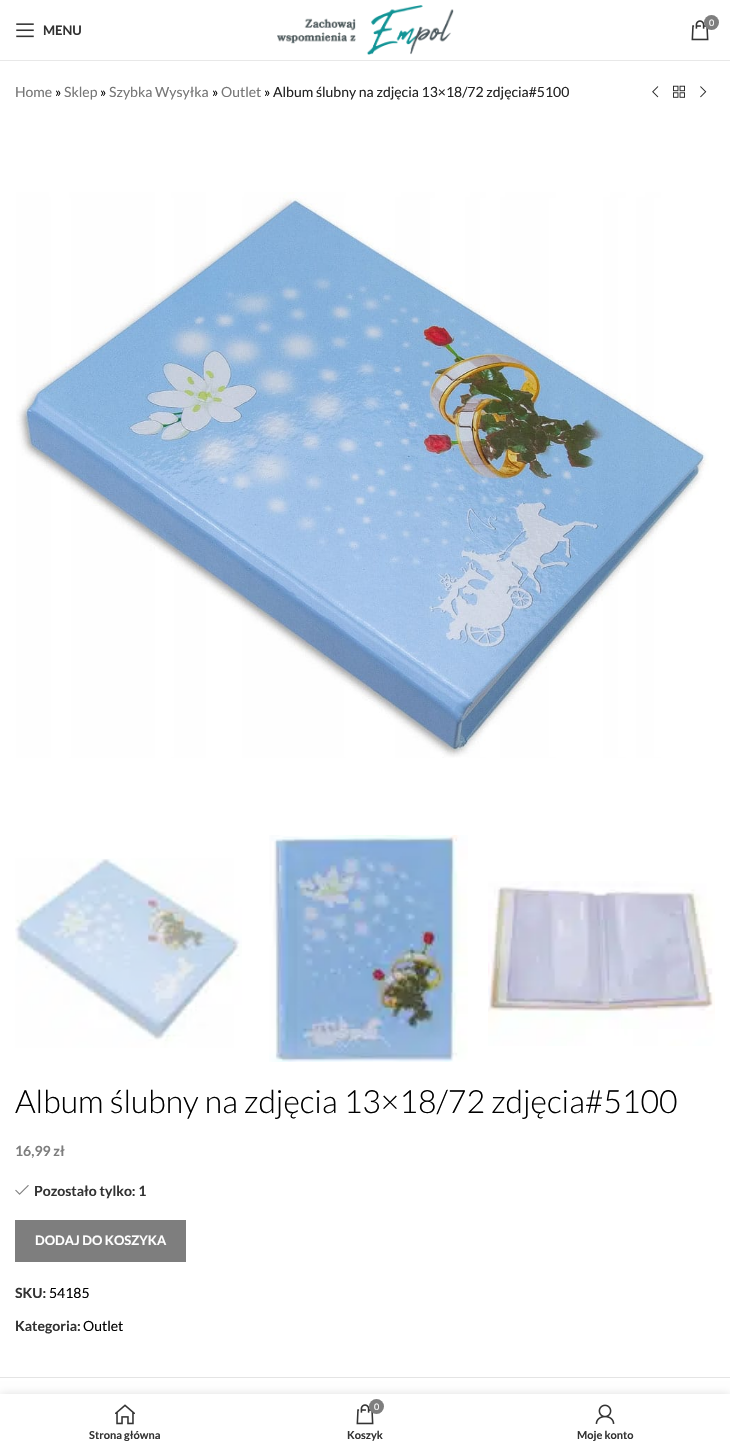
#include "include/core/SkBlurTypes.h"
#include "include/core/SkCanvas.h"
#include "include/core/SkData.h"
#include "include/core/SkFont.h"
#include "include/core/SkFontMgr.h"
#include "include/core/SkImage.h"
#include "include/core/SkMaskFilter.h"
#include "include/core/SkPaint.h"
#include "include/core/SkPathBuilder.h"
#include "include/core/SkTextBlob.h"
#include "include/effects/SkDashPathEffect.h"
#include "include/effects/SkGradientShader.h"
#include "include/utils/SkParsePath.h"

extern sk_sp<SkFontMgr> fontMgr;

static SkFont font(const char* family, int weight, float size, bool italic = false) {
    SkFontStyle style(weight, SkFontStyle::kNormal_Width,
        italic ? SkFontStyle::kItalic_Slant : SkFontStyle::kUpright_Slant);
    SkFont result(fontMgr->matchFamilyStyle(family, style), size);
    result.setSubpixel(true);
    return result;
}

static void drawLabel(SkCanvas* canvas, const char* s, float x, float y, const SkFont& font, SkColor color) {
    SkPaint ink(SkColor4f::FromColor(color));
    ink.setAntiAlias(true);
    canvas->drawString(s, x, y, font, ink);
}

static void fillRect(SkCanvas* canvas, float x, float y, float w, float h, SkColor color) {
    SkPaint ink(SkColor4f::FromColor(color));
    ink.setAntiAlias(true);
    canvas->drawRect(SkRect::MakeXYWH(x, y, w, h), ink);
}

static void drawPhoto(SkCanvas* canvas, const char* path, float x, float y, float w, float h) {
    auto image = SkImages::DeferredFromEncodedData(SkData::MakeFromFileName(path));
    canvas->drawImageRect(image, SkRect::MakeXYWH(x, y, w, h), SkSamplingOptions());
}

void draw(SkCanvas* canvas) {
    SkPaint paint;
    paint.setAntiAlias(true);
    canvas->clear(0xFFFFFFFF);
    fillRect(canvas, 0, 60, 730, 1, 0xFFE8E8E8);
    drawPhoto(canvas, "assets/img1.png", 277, 5, 177, 50);
    drawPhoto(canvas, "assets/img2.png", 691, 20, 18, 21);
    paint.setColor(0xFF7E7E7E);
    canvas->drawCircle(711.5f, 22.5f, 7.5f, paint);
    SkFont font1 = font("Lato", 400, 9);
    drawLabel(canvas, "0", 709, 26, font1, 0xFFFFFFFF);
    drawPhoto(canvas, "assets/img3.png", 16, 23, 18, 15);
    SkFont font2 = font("Lato", 700, 13);
    drawLabel(canvas, "MENU", 43, 35, font2, 0xFF333333);
    SkFont font3 = font("Lato", 400, 14);
    drawLabel(canvas, "Home", 15, 97, font3, 0xFF767676);
    drawLabel(canvas, "»", 55, 97, font3, 0xFF000000);
    drawLabel(canvas, "Sklep", 64, 97, font3, 0xFF767676);
    drawLabel(canvas, "»", 100, 97, font3, 0xFF000000);
    drawLabel(canvas, "Szybka Wysyłka", 109, 97, font3, 0xFF767676);
    drawLabel(canvas, "»", 212, 97, font3, 0xFF000000);
    drawLabel(canvas, "Outlet", 221, 97, font3, 0xFF767676);
    drawLabel(canvas, "»", 264, 97, font3, 0xFF000000);
    drawLabel(canvas, "Album ślubny na zdjęcia 13×18/72 zdjęcia#5100", 273, 97, font3, 0xFF242424);
    drawPhoto(canvas, "assets/img4.png", 652, 86, 7, 12);
    drawPhoto(canvas, "assets/img5.png", 673, 85, 12, 13);
    drawPhoto(canvas, "assets/img6.png", 700, 86, 7, 12);
    drawPhoto(canvas, "assets/img7.png", 16, 192, 693, 566);
    drawPhoto(canvas, "assets/img8.png", 15, 858, 227, 190);
    drawPhoto(canvas, "assets/img9.png", 269, 835, 199, 227);
    drawPhoto(canvas, "assets/img10.png", 488, 881, 227, 165);
    SkFont font4 = font("Lato", 300, 32);
    drawLabel(canvas, "Album ślubny na zdjęcia 13×18/72 zdjęcia#5100", 15, 1113, font4, 0xFF000000);
    SkFont font5 = font("Lato", 700, 14);
    drawLabel(canvas, "16,99 zł", 15, 1156, font5, 0xFF7E7E7E);
    drawPhoto(canvas, "assets/img11.png", 15, 1185, 14, 10);
    drawLabel(canvas, "Pozostało tylko: 1", 34, 1196, font5, 0xFF333333);
    fillRect(canvas, 15, 1220, 171, 42, 0xFF7E7E7E);
    drawLabel(canvas, "DODAJ DO KOSZYKA", 35, 1245, font2, 0xFFFFFFFF);
    drawLabel(canvas, "SKU:", 15, 1298, font5, 0xFF333333);
    drawLabel(canvas, "54185", 49, 1298, font3, 0xFF000000);
    drawLabel(canvas, "Kategoria:", 15, 1331, font5, 0xFF333333);
    drawLabel(canvas, "Outlet", 83, 1331, font3, 0xFF000000);
    fillRect(canvas, 0, 1377, 730, 1, 0xFFE4E4E4);
    paint.setColor(0x1F000000);
    paint.setMaskFilter(SkMaskFilter::MakeBlur(kNormal_SkBlurStyle, 4.5f));
    canvas->drawRect(SkRect::MakeXYWH(0, 1394, 730, 55), paint);
    paint.setMaskFilter(nullptr);
    fillRect(canvas, 0, 1394, 730, 55, 0xFFFFFFFF);
    drawPhoto(canvas, "assets/img12.png", 115, 1404, 20, 21);
    SkFont font6 = font("Lato", 700, 11);
    drawLabel(canvas, "Strona główna", 89, 1439, font6, 0xFF333333);
    drawPhoto(canvas, "assets/img2.png", 356, 1404, 18, 21);
    paint.setColor(0xFF7E7E7E);
    canvas->drawCircle(376.5f, 1406.5f, 7.5f, paint);
    drawLabel(canvas, "0", 374, 1410, font1, 0xFFFFFFFF);
    drawLabel(canvas, "Koszyk", 347, 1439, font6, 0xFF333333);
    drawPhoto(canvas, "assets/img13.png", 595, 1404, 20, 20);
    drawLabel(canvas, "Moje konto", 577, 1439, font6, 0xFF333333);
}
